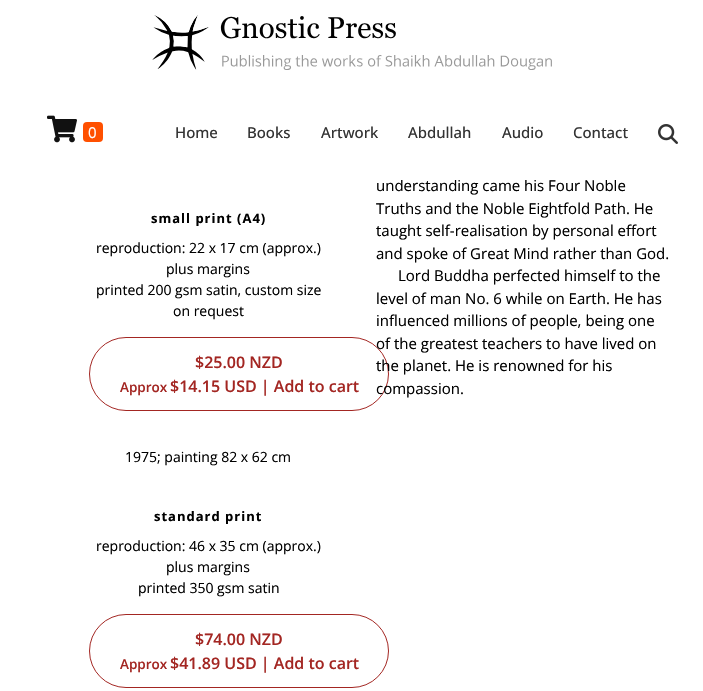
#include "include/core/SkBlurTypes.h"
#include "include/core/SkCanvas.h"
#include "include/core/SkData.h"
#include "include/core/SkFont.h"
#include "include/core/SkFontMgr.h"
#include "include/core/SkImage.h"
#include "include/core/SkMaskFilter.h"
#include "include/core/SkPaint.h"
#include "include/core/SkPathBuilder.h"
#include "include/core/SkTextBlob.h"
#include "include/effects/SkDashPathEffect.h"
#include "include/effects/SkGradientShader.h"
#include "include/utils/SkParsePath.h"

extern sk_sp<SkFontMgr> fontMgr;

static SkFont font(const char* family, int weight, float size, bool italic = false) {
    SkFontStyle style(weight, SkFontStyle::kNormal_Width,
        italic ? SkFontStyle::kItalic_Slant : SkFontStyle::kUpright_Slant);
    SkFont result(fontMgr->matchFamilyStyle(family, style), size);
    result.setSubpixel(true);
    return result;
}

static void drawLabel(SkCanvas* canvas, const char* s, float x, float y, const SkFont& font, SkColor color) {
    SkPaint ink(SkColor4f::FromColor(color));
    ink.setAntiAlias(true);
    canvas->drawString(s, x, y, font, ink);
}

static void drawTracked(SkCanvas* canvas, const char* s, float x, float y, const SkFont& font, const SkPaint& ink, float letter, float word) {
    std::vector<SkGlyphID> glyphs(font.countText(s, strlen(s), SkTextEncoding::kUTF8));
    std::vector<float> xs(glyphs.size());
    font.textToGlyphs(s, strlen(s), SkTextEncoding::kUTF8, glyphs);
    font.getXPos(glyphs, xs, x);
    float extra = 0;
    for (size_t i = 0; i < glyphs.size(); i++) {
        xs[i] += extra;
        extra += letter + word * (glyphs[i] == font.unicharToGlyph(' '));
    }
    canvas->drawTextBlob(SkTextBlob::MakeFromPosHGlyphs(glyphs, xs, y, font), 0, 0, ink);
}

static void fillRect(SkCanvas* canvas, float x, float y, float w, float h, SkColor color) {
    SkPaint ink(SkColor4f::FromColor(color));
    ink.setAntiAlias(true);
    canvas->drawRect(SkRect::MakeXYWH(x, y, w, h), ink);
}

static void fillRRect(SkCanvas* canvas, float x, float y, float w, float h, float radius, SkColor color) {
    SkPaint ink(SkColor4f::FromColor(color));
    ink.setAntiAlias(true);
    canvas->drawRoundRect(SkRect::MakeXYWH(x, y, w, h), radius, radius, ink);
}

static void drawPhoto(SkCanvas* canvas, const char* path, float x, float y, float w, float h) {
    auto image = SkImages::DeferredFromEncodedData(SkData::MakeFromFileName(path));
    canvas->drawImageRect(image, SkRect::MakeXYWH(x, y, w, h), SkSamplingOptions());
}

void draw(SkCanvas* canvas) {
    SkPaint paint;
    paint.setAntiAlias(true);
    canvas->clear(0xFFFFFFFF);
    SkFont font1 = font("Open Sans", 400, 15);
    drawLabel(canvas, "understanding came his Four Noble", 376, 191, font1, 0xFF000000);
    fillRect(canvas, 400, 179, 216, 1, 0xFFFFFFFF);
    drawPhoto(canvas, "assets/img1.png", 152, 15, 400, 55);
    drawPhoto(canvas, "assets/img2.png", 47, 115, 30, 28);
    fillRRect(canvas, 83, 122, 20, 20, 4, 0xFFFF5000);
    drawLabel(canvas, "0", 88, 138, font1, 0xFFFFFFFF);
    SkFont font2 = font("Open Sans", 500, 15);
    drawLabel(canvas, "Home", 175, 138, font2, 0xFF333333);
    drawLabel(canvas, "Books", 247, 138, font2, 0xFF333333);
    drawLabel(canvas, "Artwork", 321, 138, font2, 0xFF333333);
    drawLabel(canvas, "Abdullah", 408, 138, font2, 0xFF333333);
    drawLabel(canvas, "Audio", 502, 138, font2, 0xFF333333);
    drawLabel(canvas, "Contact", 573, 138, font2, 0xFF333333);
    drawPhoto(canvas, "assets/img3.png", 658, 124, 20, 20);
    SkFont font3 = font("Open Sans", 700, 13);
    paint.setColor(0xFF000000);
    drawTracked(canvas, "small print (A4)", 151, 223, font3, paint, 1, 0);
    SkFont font4 = font("Open Sans", 400, 14);
    drawLabel(canvas, "reproduction: 22 x 17 cm (approx.)", 96, 253, font4, 0xFF000000);
    drawLabel(canvas, "plus margins", 166, 274, font4, 0xFF000000);
    drawLabel(canvas, "printed 200 gsm satin, custom size", 96, 295, font4, 0xFF000000);
    drawLabel(canvas, "on request", 173, 316, font4, 0xFF000000);
    paint.setStroke(true);
    paint.setStrokeWidth(1);
    paint.setColor(0xFFA32622);
    canvas->drawRoundRect(SkRect::MakeXYWH(89.5f, 337.5f, 299, 73), 36.5f, 36.5f, paint);
    SkFont font5 = font("Open Sans", 600, 16);
    drawLabel(canvas, "$25.00 NZD", 195, 368, font5, 0xFFA32622);
    SkFont font6 = font("Open Sans", 600, 13.5f);
    drawLabel(canvas, "Approx", 120, 392, font6, 0xFFA32622);
    drawLabel(canvas, "$14.15 USD | Add to cart", 170, 392, font5, 0xFFA32622);
    drawLabel(canvas, "1975; painting 82 x 62 cm", 125, 462, font4, 0xFF000000);
    paint.setStroke(false);
    paint.setColor(0xFF000000);
    drawTracked(canvas, "standard print", 154, 521, font3, paint, 1, 0);
    drawLabel(canvas, "reproduction: 46 x 35 cm (approx.)", 96, 551, font4, 0xFF000000);
    drawLabel(canvas, "plus margins", 166, 572, font4, 0xFF000000);
    drawLabel(canvas, "printed 350 gsm satin", 138, 593, font4, 0xFF000000);
    paint.setStroke(true);
    paint.setColor(0xFFA32622);
    canvas->drawRoundRect(SkRect::MakeXYWH(89.5f, 614.5f, 299, 73), 36.5f, 36.5f, paint);
    drawLabel(canvas, "$74.00 NZD", 195, 645, font5, 0xFFA32622);
    drawLabel(canvas, "Approx", 120, 669, font6, 0xFFA32622);
    drawLabel(canvas, "$41.89 USD | Add to cart", 170, 669, font5, 0xFFA32622);
    drawLabel(canvas, "Truths and the Noble Eightfold Path. He", 376, 214, font1, 0xFF000000);
    drawLabel(canvas, "taught self-realisation by personal effort", 376, 236, font1, 0xFF000000);
    drawLabel(canvas, "and spoke of Great Mind rather than God.", 376, 259, font1, 0xFF000000);
    drawLabel(canvas, "Lord Buddha perfected himself to the", 398, 281, font1, 0xFF000000);
    drawLabel(canvas, "level of man No. 6 while on Earth. He has", 376, 304, font1, 0xFF000000);
    drawLabel(canvas, "influenced millions of people, being one", 376, 326, font1, 0xFF000000);
    drawLabel(canvas, "of the greatest teachers to have lived on", 376, 349, font1, 0xFF000000);
    drawLabel(canvas, "the planet. He is renowned for his", 376, 371, font1, 0xFF000000);
    drawLabel(canvas, "compassion.", 376, 394, font1, 0xFF000000);
}
